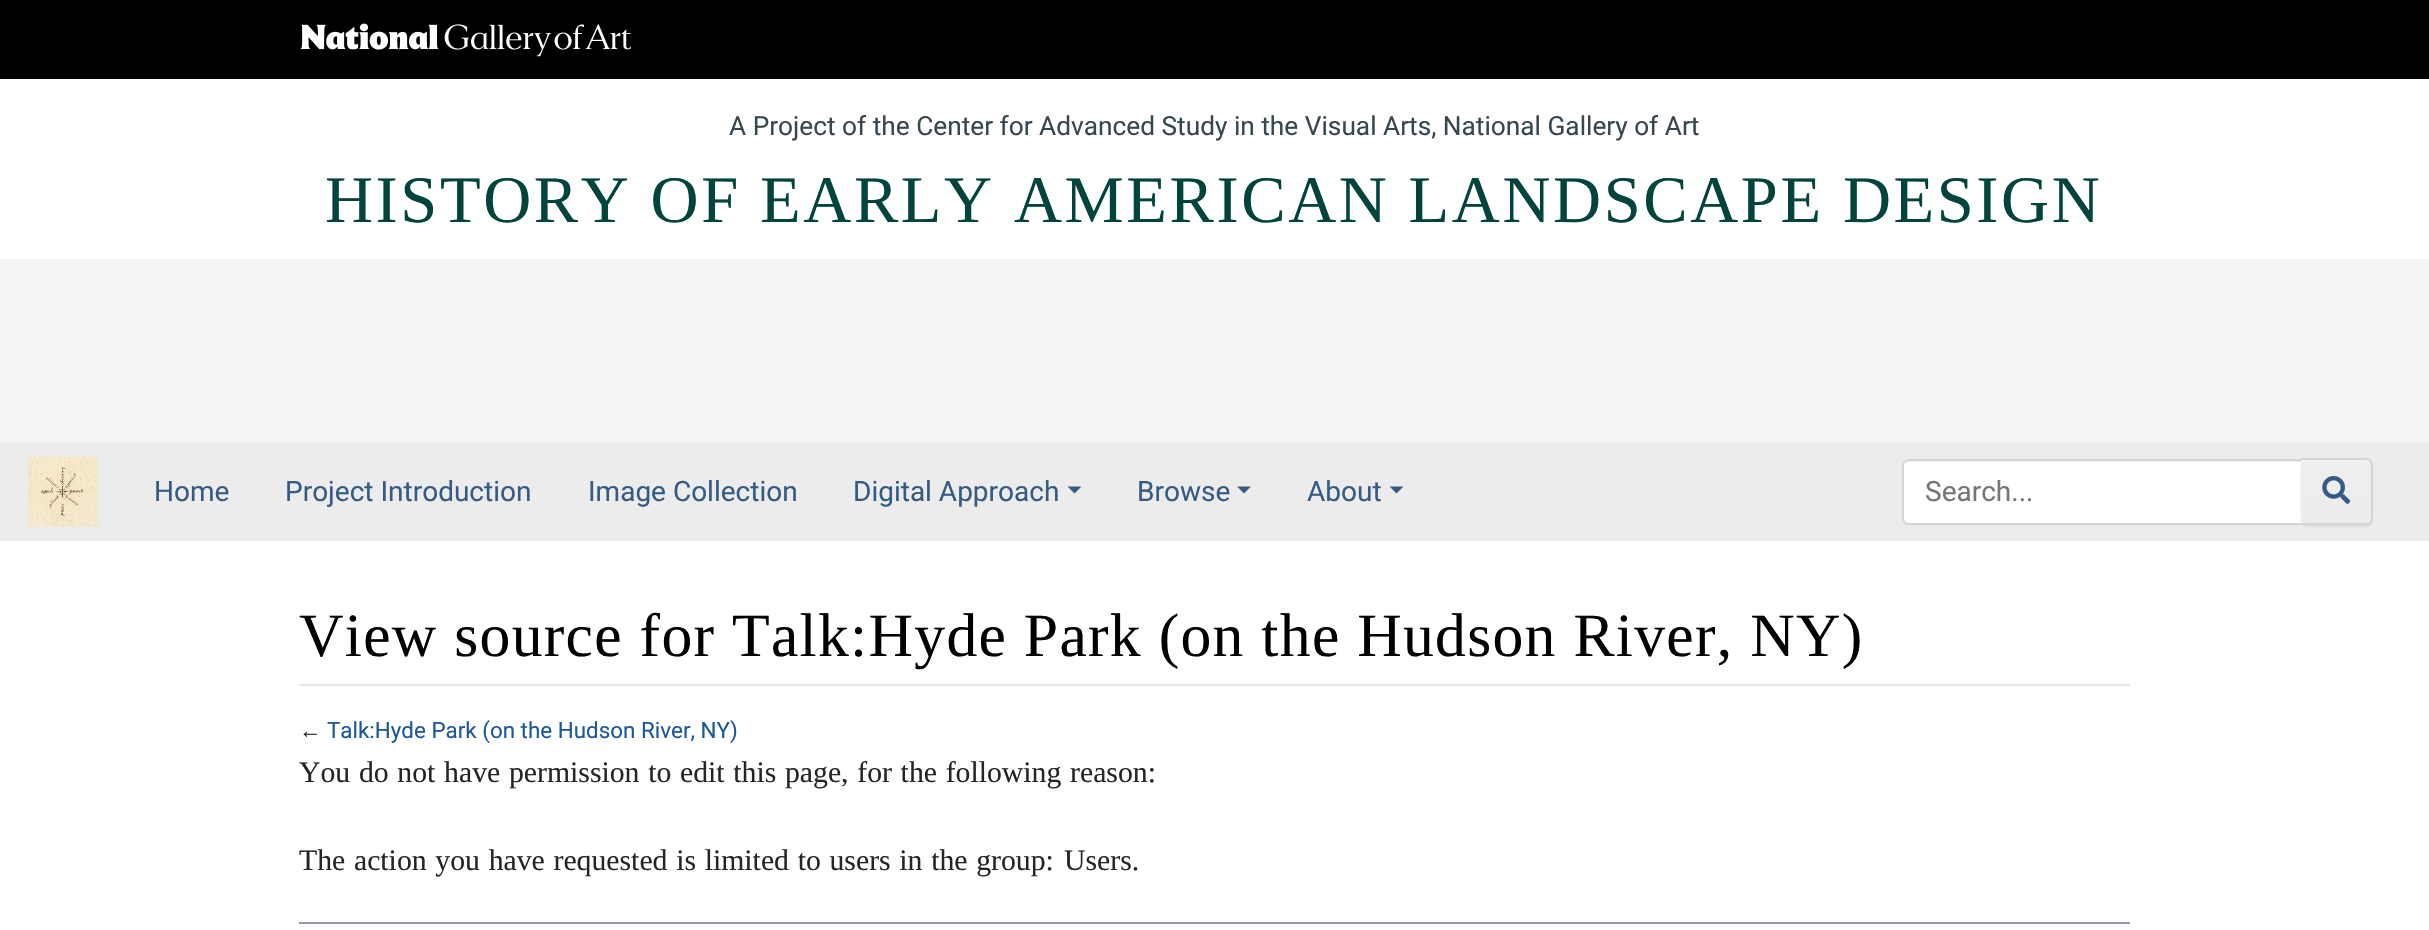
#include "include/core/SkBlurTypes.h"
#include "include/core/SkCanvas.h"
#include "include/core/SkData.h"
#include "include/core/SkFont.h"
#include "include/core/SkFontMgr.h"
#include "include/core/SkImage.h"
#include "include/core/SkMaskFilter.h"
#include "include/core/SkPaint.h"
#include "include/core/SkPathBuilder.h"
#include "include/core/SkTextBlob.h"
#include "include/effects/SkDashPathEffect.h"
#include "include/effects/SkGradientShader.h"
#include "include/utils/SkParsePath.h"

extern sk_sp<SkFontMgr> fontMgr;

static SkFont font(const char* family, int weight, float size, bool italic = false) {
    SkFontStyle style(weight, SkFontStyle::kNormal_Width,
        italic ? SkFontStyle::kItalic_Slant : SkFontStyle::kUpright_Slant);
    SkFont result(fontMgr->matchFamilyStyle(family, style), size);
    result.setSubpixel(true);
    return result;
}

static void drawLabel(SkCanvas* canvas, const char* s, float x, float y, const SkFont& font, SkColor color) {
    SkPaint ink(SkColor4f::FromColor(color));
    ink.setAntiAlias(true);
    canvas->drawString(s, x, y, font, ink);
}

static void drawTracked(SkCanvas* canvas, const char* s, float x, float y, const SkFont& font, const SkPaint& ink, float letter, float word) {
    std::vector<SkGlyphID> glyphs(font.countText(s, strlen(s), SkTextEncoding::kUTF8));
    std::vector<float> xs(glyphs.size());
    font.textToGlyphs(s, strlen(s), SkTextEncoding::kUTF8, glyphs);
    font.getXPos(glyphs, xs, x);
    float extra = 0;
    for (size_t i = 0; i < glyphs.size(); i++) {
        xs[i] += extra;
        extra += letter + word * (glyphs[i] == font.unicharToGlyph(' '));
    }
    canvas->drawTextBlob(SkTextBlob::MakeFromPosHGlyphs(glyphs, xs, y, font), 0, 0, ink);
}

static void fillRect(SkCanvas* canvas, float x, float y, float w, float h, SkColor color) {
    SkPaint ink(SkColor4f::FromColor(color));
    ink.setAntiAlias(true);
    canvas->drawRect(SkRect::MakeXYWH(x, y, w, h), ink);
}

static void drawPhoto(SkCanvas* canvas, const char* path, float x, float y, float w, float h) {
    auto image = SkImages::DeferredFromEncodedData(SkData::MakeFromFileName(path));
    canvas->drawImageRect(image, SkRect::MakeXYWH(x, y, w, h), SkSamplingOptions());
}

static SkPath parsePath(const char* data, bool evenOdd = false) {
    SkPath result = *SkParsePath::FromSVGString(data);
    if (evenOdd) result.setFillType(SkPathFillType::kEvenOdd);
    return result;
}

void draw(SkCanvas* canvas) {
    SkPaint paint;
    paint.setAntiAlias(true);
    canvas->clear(0xFFFFFFFF);
    fillRect(canvas, 0, 0, 2429, 79, 0xFF000000);
    drawPhoto(canvas, "assets/img1.png", 300, 23, 331, 34);
    SkFont font1 = font("Roboto", 400, 26.25f);
    drawLabel(canvas, "A Project of the Center for Advanced Study in the Visual Arts, National Gallery of Art", 729, 135, font1, 0xFF37474F);
    SkFont font2 = font("Liberation Serif", 400, 66.5f);
    paint.setColor(0xFF01443E);
    drawTracked(canvas, "HISTORY OF EARLY AMERICAN LANDSCAPE DESIGN", 325, 222, font2, paint, 2.6f, 0);
    fillRect(canvas, 0, 259, 2429, 184, 0xFFF5F5F5);
    fillRect(canvas, 0, 443, 2429, 98, 0xFFECECEC);
    drawPhoto(canvas, "assets/img2.png", 28, 456, 70, 71);
    SkFont font3 = font("Roboto", 400, 28);
    drawLabel(canvas, "Home", 154, 501, font3, 0xFF355B84);
    drawLabel(canvas, "Project Introduction", 285, 501, font3, 0xFF355B84);
    drawLabel(canvas, "Image Collection", 588, 501, font3, 0xFF355B84);
    drawLabel(canvas, "Digital Approach", 853, 501, font3, 0xFF355B84);
    paint.setColor(0xFF355B84);
    canvas->drawPath(parsePath("M1067.5 486.5H1081.5L1074.5 493.5Z"), paint);
    drawLabel(canvas, "Browse", 1137, 501, font3, 0xFF355B84);
    canvas->drawPath(parsePath("M1237 486.5H1251L1244 493.5Z"), paint);
    drawLabel(canvas, "About", 1307, 501, font3, 0xFF355B84);
    canvas->drawPath(parsePath("M1389.5 486.5H1403.5L1396.5 493.5Z"), paint);
    paint.setColor(0xFFFFFFFF);
    canvas->drawPath(parsePath("M1909 460H2301V523H1909C1906 523 1904 521 1904 518V465C1904 462 1906 460 1909 460Z"), paint);
    paint.setColor(0x12000000);
    canvas->drawPath(parsePath("M1909 462H2301V460H1909C1906 460 1904 462 1904 465V467C1904 464 1906 462 1909 462Z"), paint);
    paint.setStroke(true);
    paint.setStrokeWidth(2);
    paint.setColor(0xFFD4D4D4);
    canvas->drawPath(parsePath("M1909 460H2302V524H1909C1905.5 524 1903 521.5 1903 518V466C1903 462.5 1905.5 460 1909 460Z"), paint);
    drawLabel(canvas, "Search...", 1925, 501, font3, 0xFF757575);
    paint.setStroke(false);
    paint.setColor(0x12000000);
    paint.setMaskFilter(SkMaskFilter::MakeBlur(kNormal_SkBlurStyle, 1));
    canvas->drawRoundRect(SkRect::MakeXYWH(2301, 460, 72, 67), 7, 7, paint);
    paint.setMaskFilter(nullptr);
    {
        const SkColor colors[] = {0xFFEFEFEF, 0xFFECECEC};
        const float stops[] = {0, 1};
        const SkPoint ends[] = {{2336, 460}, {2336, 523}};
        paint.setShader(SkGradientShader::MakeLinear(ends, colors, stops, 2, SkTileMode::kClamp));
        paint.setAlpha(255);
    }
    canvas->drawPath(parsePath("M2301 460H2366C2369 460 2371 462 2371 465V518C2371 521 2369 523 2366 523H2301Z"), paint);
    paint.setShader(nullptr);
    paint.setColor(0xFFF1F1F1);
    canvas->drawPath(parsePath("M2301 462H2366C2369 462 2371 464 2371 467V465C2371 462 2369 460 2366 460H2301Z"), paint);
    paint.setColor(0xFFD4D4D4);
    canvas->drawPath(parsePath("M2301 458H2366C2370 458 2373 462 2373 466V518C2373 522 2370 525 2366 525H2301ZM2301 460H2366C2369 460 2371 463 2371 466V518C2371 521 2369 523 2366 523H2301Z", true), paint);
    drawPhoto(canvas, "assets/img3.png", 2322, 476, 29, 28);
    fillRect(canvas, 299, 684, 1831, 2, 0xFFE6E6E6);
    SkFont font4 = font("Liberation Serif", 400, 61.6f);
    paint.setColor(0xFF000000);
    drawTracked(canvas, "View source for Talk:Hyde Park (on the Hudson River, NY)", 299, 656, font4, paint, 1.3f, 0);
    SkFont font5 = font("Liberation Sans", 400, 22.4f);
    drawLabel(canvas, "←", 299, 738, font5, 0xFF252525);
    SkFont font6 = font("Roboto", 400, 22.4f);
    drawLabel(canvas, "Talk:Hyde Park (on the Hudson River, NY)", 327, 738, font6, 0xFF1B599B);
    SkFont font7 = font("Liberation Serif", 400, 29.75f);
    paint.setColor(0xFF252525);
    drawTracked(canvas, "You do not have permission to edit this page, for the following reason:", 299, 782, font7, paint, 0, 1.25f);
    drawTracked(canvas, "The action you have requested is limited to users in the group:", 299, 870, font7, paint, 0, 1.25f);
    drawLabel(canvas, "Users.", 1064, 870, font7, 0xFF252525);
    fillRect(canvas, 299, 922, 1831, 2, 0xFF92989F);
}
